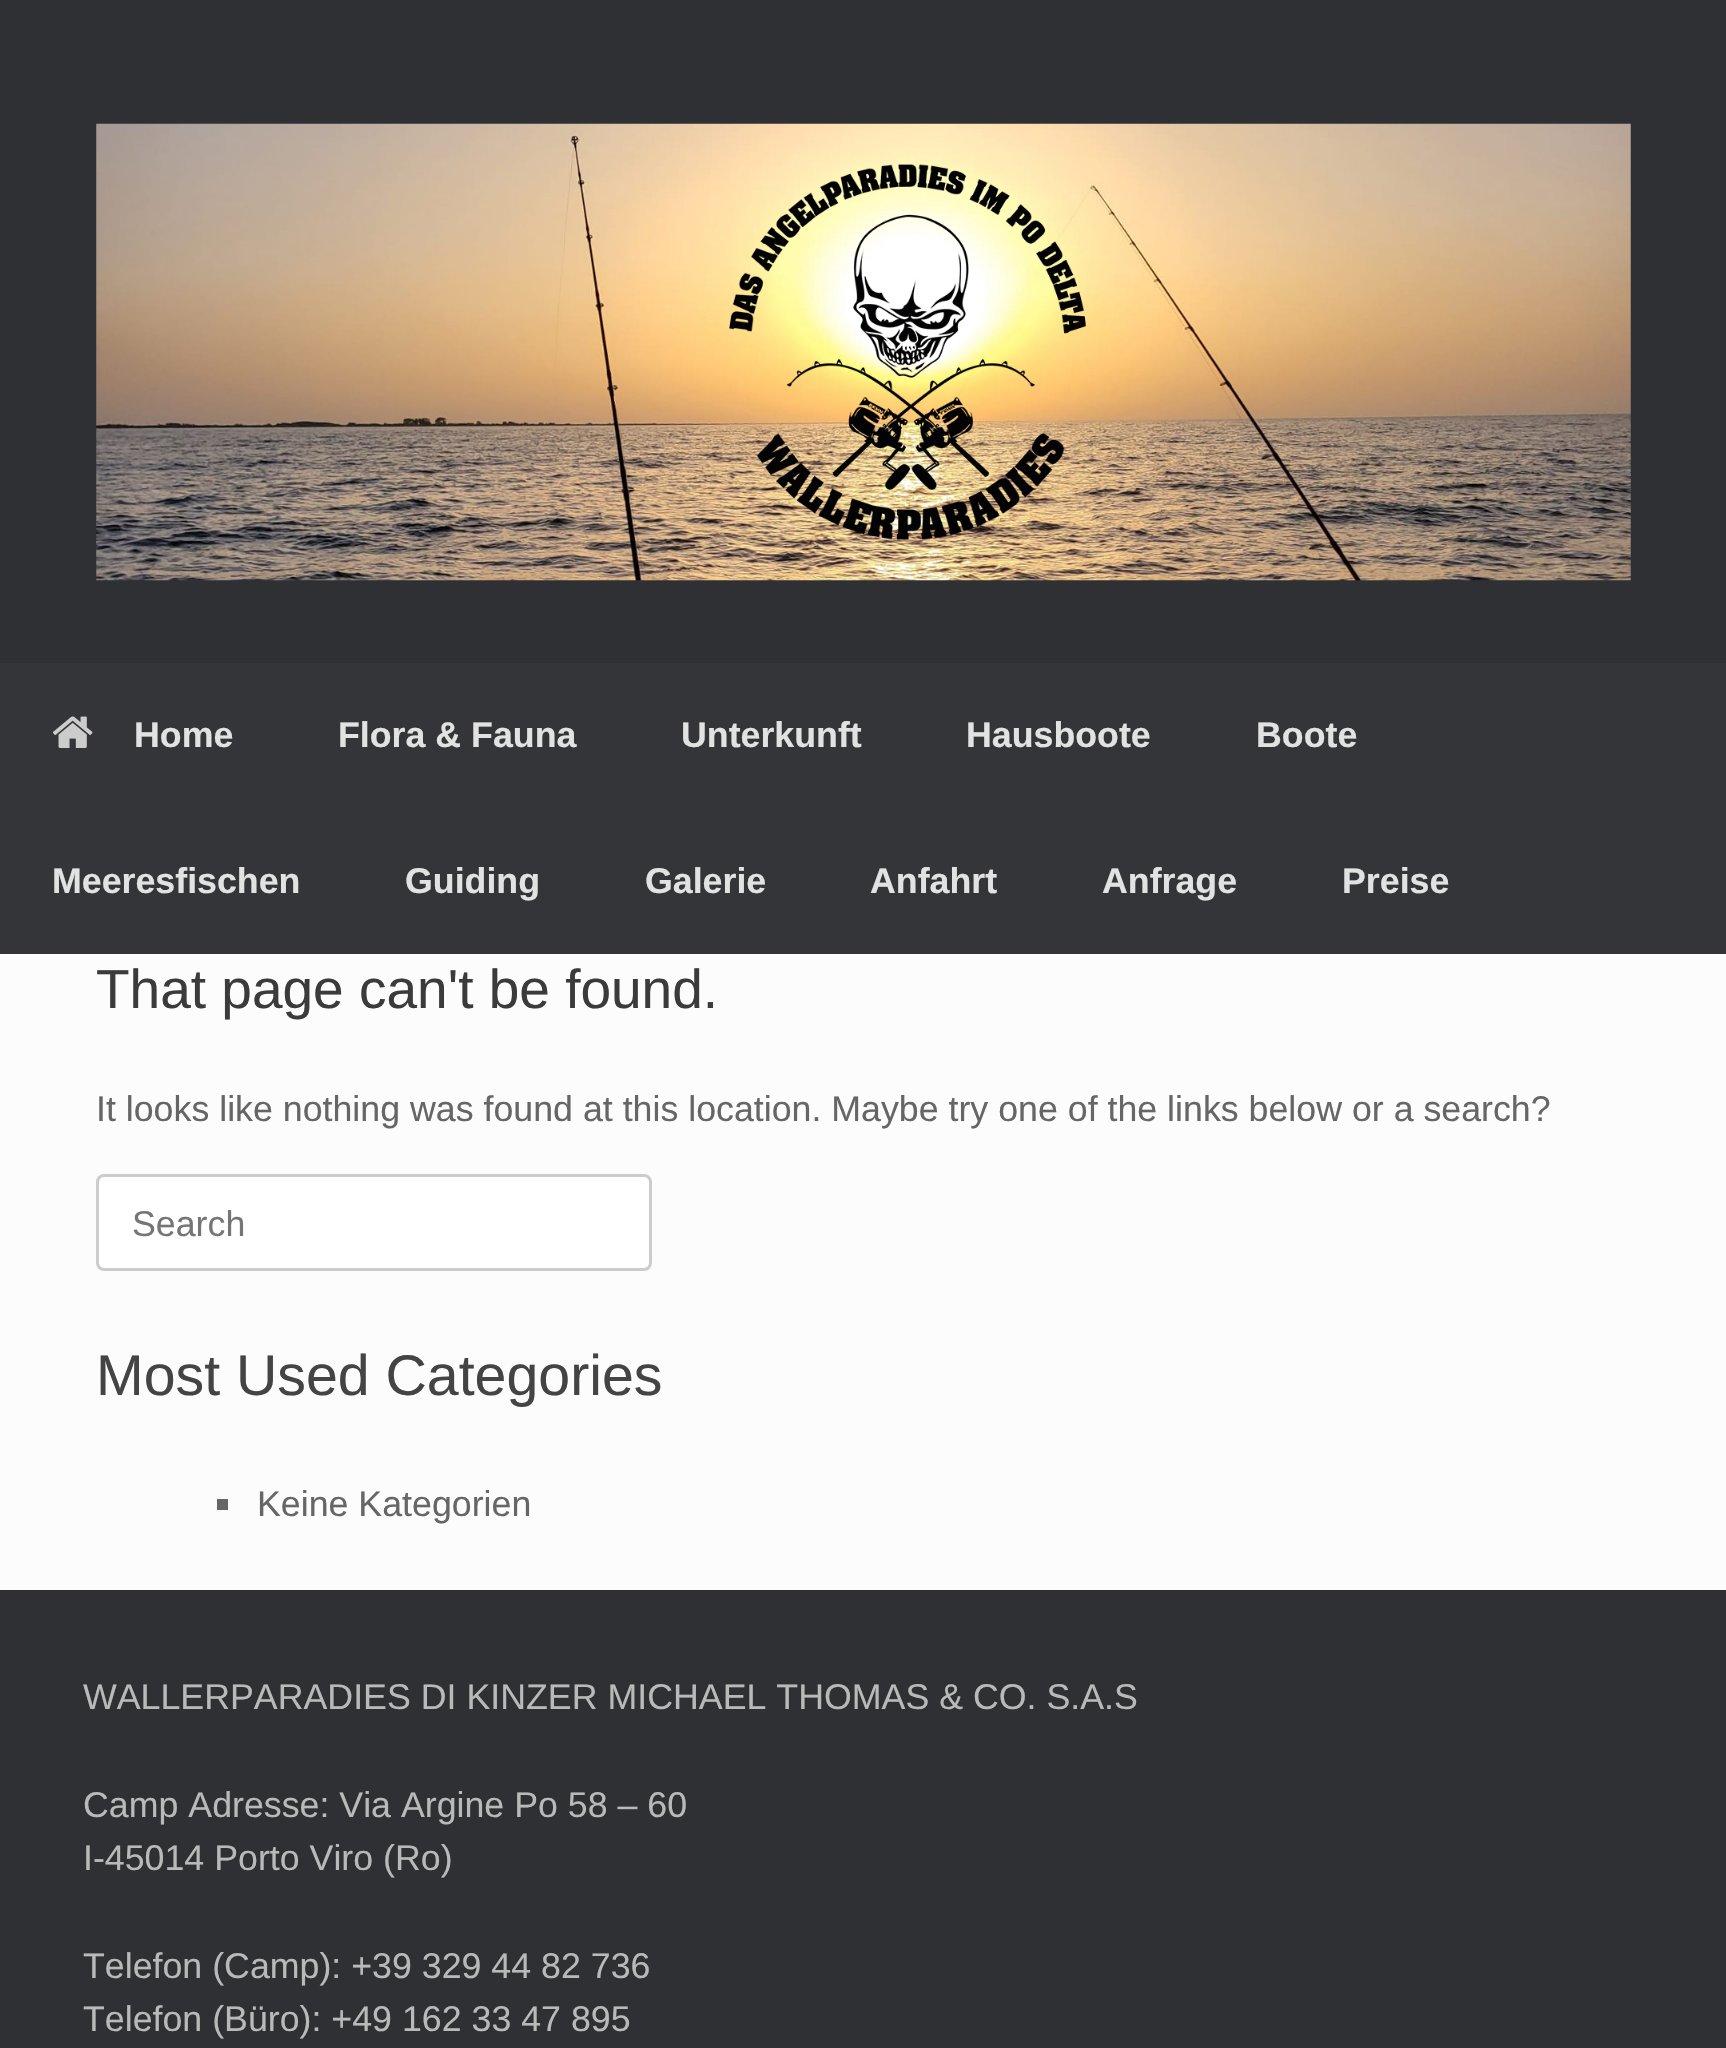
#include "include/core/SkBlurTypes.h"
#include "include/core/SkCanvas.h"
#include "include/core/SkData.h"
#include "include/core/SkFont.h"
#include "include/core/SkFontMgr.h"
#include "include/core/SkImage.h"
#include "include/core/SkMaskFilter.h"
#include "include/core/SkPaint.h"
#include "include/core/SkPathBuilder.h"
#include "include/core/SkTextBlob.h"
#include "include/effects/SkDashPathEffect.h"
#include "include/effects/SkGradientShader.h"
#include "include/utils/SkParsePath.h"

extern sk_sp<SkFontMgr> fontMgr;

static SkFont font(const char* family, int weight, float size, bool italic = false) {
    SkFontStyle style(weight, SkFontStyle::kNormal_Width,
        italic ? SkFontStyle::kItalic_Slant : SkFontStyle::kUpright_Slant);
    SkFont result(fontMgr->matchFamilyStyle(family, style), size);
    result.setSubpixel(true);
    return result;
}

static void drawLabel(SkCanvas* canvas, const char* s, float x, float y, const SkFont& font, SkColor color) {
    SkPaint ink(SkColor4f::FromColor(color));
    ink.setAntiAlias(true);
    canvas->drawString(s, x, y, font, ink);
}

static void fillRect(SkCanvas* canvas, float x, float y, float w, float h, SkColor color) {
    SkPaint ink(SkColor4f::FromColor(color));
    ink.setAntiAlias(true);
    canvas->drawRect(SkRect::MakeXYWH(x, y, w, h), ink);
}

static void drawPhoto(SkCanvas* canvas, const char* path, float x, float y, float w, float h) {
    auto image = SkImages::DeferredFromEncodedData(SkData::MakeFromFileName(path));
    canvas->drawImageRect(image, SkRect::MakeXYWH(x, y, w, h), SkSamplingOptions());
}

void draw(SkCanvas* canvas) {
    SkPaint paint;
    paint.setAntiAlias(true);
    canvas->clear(0xFF2F3033);
    drawPhoto(canvas, "assets/img1.png", 96, 123, 1535, 458);
    fillRect(canvas, 0, 663, 1726, 291, 0xFF343538);
    drawPhoto(canvas, "assets/img2.png", 52, 716, 41, 32);
    SkFont font1 = font("Liberation Sans", 700, 35.75f);
    drawLabel(canvas, "Home", 134, 747, font1, 0xFFE2E2E2);
    drawLabel(canvas, "Flora & Fauna", 338, 747, font1, 0xFFE2E2E2);
    drawLabel(canvas, "Unterkunft", 681, 747, font1, 0xFFE2E2E2);
    drawLabel(canvas, "Hausboote", 966, 747, font1, 0xFFE2E2E2);
    drawLabel(canvas, "Boote", 1256, 747, font1, 0xFFE2E2E2);
    drawLabel(canvas, "Meeresfischen", 52, 893, font1, 0xFFE2E2E2);
    drawLabel(canvas, "Guiding", 405, 893, font1, 0xFFE2E2E2);
    drawLabel(canvas, "Galerie", 645, 893, font1, 0xFFE2E2E2);
    drawLabel(canvas, "Anfahrt", 870, 893, font1, 0xFFE2E2E2);
    drawLabel(canvas, "Anfrage", 1102, 893, font1, 0xFFE2E2E2);
    drawLabel(canvas, "Preise", 1342, 893, font1, 0xFFE2E2E2);
    fillRect(canvas, 0, 954, 1726, 636, 0xFFFCFCFC);
    SkFont font2 = font("Liberation Sans", 400, 55);
    drawLabel(canvas, "That page can't be found.", 96, 1008, font2, 0xFF3B3B3B);
    SkFont font3 = font("Liberation Sans", 400, 35.75f);
    drawLabel(canvas, "It looks like nothing was found at this location. Maybe try one of the links below or a search?", 96, 1121, font3, 0xFF666666);
    paint.setColor(0xFFFFFFFF);
    canvas->drawRoundRect(SkRect::MakeXYWH(97.5f, 1175.5f, 553, 94), 6.5f, 6.5f, paint);
    paint.setStroke(true);
    paint.setStrokeWidth(3);
    paint.setColor(0xFFCCCCCC);
    canvas->drawRoundRect(SkRect::MakeXYWH(97.5f, 1175.5f, 553, 94), 6.5f, 6.5f, paint);
    drawLabel(canvas, "Search", 132, 1236, font3, 0xFF757575);
    SkFont font4 = font("Liberation Sans", 400, 57.25f);
    drawLabel(canvas, "Most Used Categories", 96, 1395, font4, 0xFF444444);
    fillRect(canvas, 217, 1499, 11, 11, 0xFF666666);
    drawLabel(canvas, "Keine Kategorien", 257, 1516, font3, 0xFF666666);
    drawLabel(canvas, "WALLERPARADIES DI KINZER MICHAEL THOMAS & CO. S.A.S", 83, 1709, font3, 0xFFB9B9B9);
    drawLabel(canvas, "Camp Adresse: Via Argine Po 58 – 60", 83, 1817, font3, 0xFFB9B9B9);
    drawLabel(canvas, "I-45014 Porto Viro (Ro)", 83, 1870, font3, 0xFFB9B9B9);
    drawLabel(canvas, "Telefon (Camp): +39 329 44 82 736", 83, 1978, font3, 0xFFB9B9B9);
    drawLabel(canvas, "Telefon (Büro): +49 162 33 47 895", 83, 2031, font3, 0xFFB9B9B9);
}
